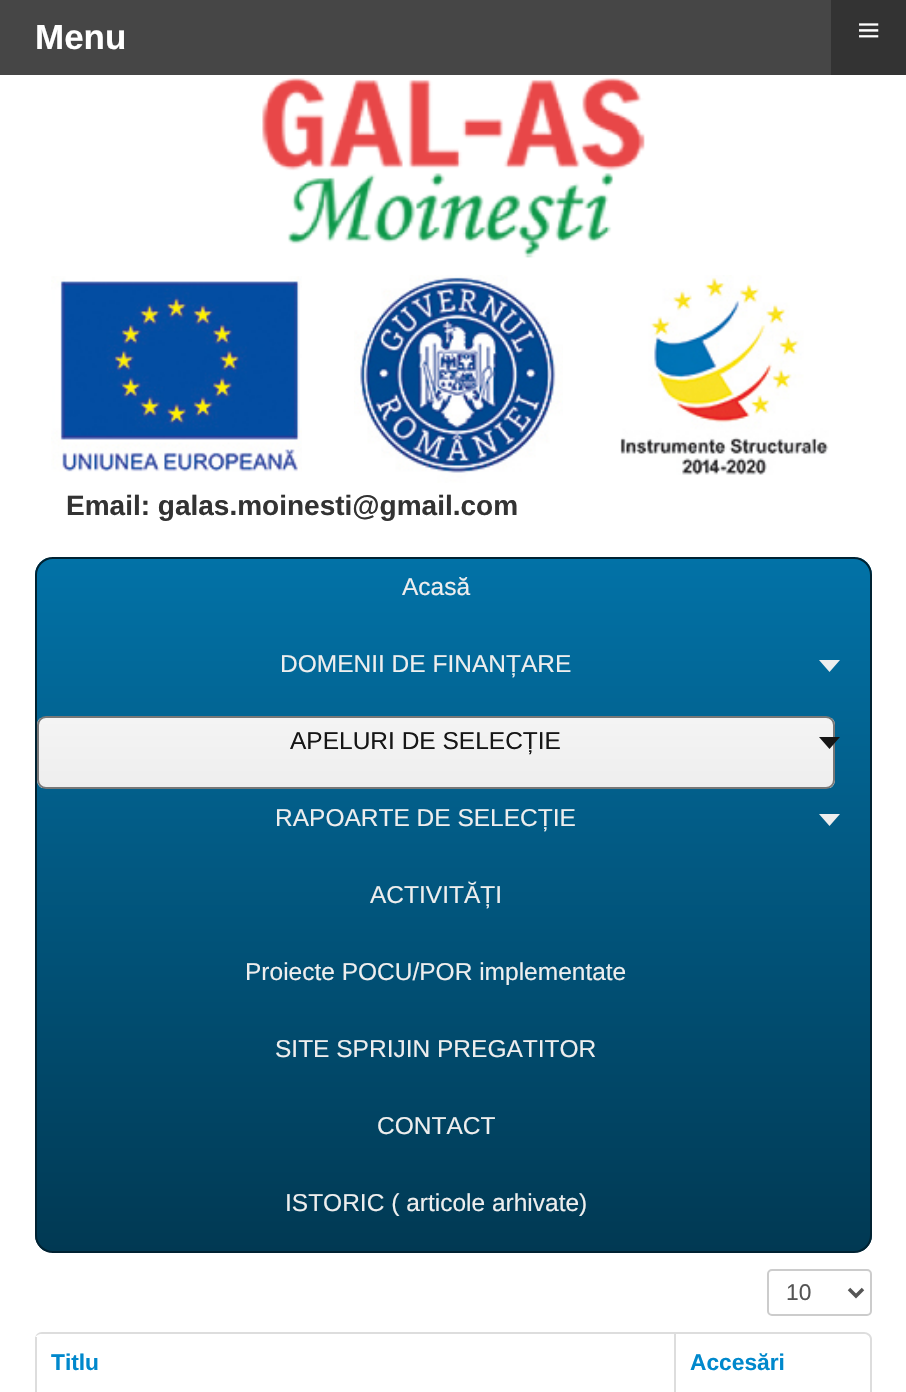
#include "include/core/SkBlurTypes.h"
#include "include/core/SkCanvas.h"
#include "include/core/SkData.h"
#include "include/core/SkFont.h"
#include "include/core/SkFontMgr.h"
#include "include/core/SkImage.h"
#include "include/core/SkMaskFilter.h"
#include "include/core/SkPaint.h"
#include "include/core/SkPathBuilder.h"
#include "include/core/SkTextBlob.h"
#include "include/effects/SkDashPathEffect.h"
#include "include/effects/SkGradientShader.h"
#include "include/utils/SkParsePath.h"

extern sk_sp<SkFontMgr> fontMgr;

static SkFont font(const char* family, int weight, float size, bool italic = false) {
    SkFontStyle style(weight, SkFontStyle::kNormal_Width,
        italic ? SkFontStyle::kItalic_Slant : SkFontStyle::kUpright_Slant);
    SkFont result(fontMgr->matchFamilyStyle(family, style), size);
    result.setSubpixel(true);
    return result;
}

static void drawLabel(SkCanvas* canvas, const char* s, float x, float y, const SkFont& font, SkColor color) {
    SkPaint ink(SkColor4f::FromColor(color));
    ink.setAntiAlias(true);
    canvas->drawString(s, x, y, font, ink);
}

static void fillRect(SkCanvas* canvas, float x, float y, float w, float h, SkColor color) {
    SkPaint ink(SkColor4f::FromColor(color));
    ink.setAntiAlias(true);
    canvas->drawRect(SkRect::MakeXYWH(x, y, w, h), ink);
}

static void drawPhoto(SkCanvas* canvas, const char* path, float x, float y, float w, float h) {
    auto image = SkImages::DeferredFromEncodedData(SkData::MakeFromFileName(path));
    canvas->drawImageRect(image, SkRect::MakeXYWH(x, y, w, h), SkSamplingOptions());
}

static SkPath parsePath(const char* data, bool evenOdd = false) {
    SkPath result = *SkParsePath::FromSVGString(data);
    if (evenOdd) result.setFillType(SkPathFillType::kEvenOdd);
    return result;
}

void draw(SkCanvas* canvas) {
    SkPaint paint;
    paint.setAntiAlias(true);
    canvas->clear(0xFFFFFFFF);
    fillRect(canvas, 0, 0, 831, 75, 0xFF464646);
    SkFont font1 = font("Liberation Sans", 700, 35);
    drawLabel(canvas, "Menu", 35, 49, font1, 0xFFFFFFFF);
    fillRect(canvas, 831, 0, 75, 75, 0xFF333333);
    SkFont font2 = font("Liberation Serif", 400, 41);
    drawLabel(canvas, "≡", 857, 44, font2, 0xFFFFFFFF);
    drawPhoto(canvas, "assets/img1.png", 262, 77, 383, 181);
    drawPhoto(canvas, "assets/img2.png", 51, 276, 251, 196);
    drawPhoto(canvas, "assets/img3.png", 354, 275, 209, 208);
    drawPhoto(canvas, "assets/img4.png", 620, 275, 209, 200);
    SkFont font3 = font("Liberation Sans", 700, 28);
    drawLabel(canvas, "Email: galas.moinesti@gmail.com", 66, 515, font3, 0xFF333333);
    canvas->save();
    canvas->clipPath(parsePath("M53 557H854C864 557 872 565 872 575V1235C872 1245 864 1253 854 1253H53C43 1253 35 1245 35 1235V575C35 565 43 557 53 557Z"), true);
    {
        const SkColor colors[] = {0xFF0272A7, 0xFF013953};
        const float stops[] = {0, 1};
        const SkPoint ends[] = {{453, 558}, {453, 1251}};
        paint.setShader(SkGradientShader::MakeLinear(ends, colors, stops, 2, SkTileMode::kClamp));
        paint.setAlpha(255);
    }
    canvas->drawRect(SkRect::MakeXYWH(35, 558, 837, 693), paint);
    canvas->restore();
    paint.setStroke(true);
    paint.setStrokeWidth(2);
    paint.setShader(nullptr);
    paint.setColor(0xFF002232);
    canvas->drawRoundRect(SkRect::MakeXYWH(36, 558, 835, 694), 17, 17, paint);
    SkFont font4 = font("Liberation Sans", 400, 24.5f);
    drawLabel(canvas, "Acasă", 402, 595, font4, 0xFFEEEEEE);
    drawLabel(canvas, "DOMENII DE FINANȚARE", 280, 672, font4, 0xFFEEEEEE);
    paint.setStroke(false);
    paint.setColor(0xFFEEEEEE);
    canvas->drawPath(parsePath("M819 660H840L829.5 672Z"), paint);
    canvas->save();
    canvas->clipPath(parsePath("M46 716H826C831 716 835 720 835 725V780C835 785 831 789 826 789H46C41 789 37 785 37 780V725C37 720 41 716 46 716Z"), true);
    {
        const SkColor colors[] = {0xFFF4F4F4, 0xFFEEEEEE};
        const float stops[] = {0, 1};
        const SkPoint ends[] = {{39, 718}, {39, 788}};
        paint.setShader(SkGradientShader::MakeLinear(ends, colors, stops, 2, SkTileMode::kClamp));
        paint.setAlpha(255);
    }
    canvas->drawRect(SkRect::MakeXYWH(37, 718, 798, 70), paint);
    canvas->restore();
    paint.setStroke(true);
    paint.setShader(nullptr);
    paint.setColor(0xFF777777);
    canvas->drawRoundRect(SkRect::MakeXYWH(38, 717, 796, 71), 8, 8, paint);
    drawLabel(canvas, "APELURI DE SELECȚIE", 290, 749, font4, 0xFF161616);
    paint.setStroke(false);
    paint.setColor(0xFF161616);
    canvas->drawPath(parsePath("M819 737H840L829.5 749Z"), paint);
    drawLabel(canvas, "RAPOARTE DE SELECȚIE", 275, 826, font4, 0xFFEEEEEE);
    paint.setColor(0xFFEEEEEE);
    canvas->drawPath(parsePath("M819 814H840L829.5 826Z"), paint);
    drawLabel(canvas, "ACTIVITĂȚI", 370, 903, font4, 0xFFEEEEEE);
    drawLabel(canvas, "Proiecte POCU/POR implementate", 245, 980, font4, 0xFFEEEEEE);
    drawLabel(canvas, "SITE SPRIJIN PREGATITOR", 275, 1057, font4, 0xFFEEEEEE);
    drawLabel(canvas, "CONTACT", 377, 1134, font4, 0xFFEEEEEE);
    drawLabel(canvas, "ISTORIC ( articole arhivate)", 285, 1211, font4, 0xFFEEEEEE);
    paint.setStroke(true);
    paint.setColor(0xFFCCCCCC);
    canvas->drawRoundRect(SkRect::MakeXYWH(768, 1270, 103, 45), 4, 4, paint);
    paint.setStrokeWidth(3.5f);
    paint.setColor(0xFF555555);
    canvas->drawPath(parsePath("M849 1289L856 1296L863 1289"), paint);
    SkFont font5 = font("Liberation Sans", 400, 22.75f);
    drawLabel(canvas, "10", 786, 1300, font5, 0xFF555555);
    paint.setStroke(false);
    paint.setColor(0xFFDDDDDD);
    canvas->drawPath(parsePath("M42 1332H864C868 1332 872 1335 872 1339V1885C872 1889 868 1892 864 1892H42C38 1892 35 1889 35 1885V1339C35 1335 38 1332 42 1332ZM42 1334H864C867 1334 870 1336 870 1339V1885C870 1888 867 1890 864 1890H42C38 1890 35 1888 35 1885V1339C35 1336 38 1334 42 1334Z", true), paint);
    fillRect(canvas, 35, 1337, 2, 55, 0xFFDDDDDD);
    SkFont font6 = font("Liberation Sans", 700, 22.75f);
    drawLabel(canvas, "Titlu", 51, 1370, font6, 0xFF0088CC);
    fillRect(canvas, 674, 1334, 2, 58, 0xFFDDDDDD);
    drawLabel(canvas, "Accesări", 690, 1370, font6, 0xFF0088CC);
}
